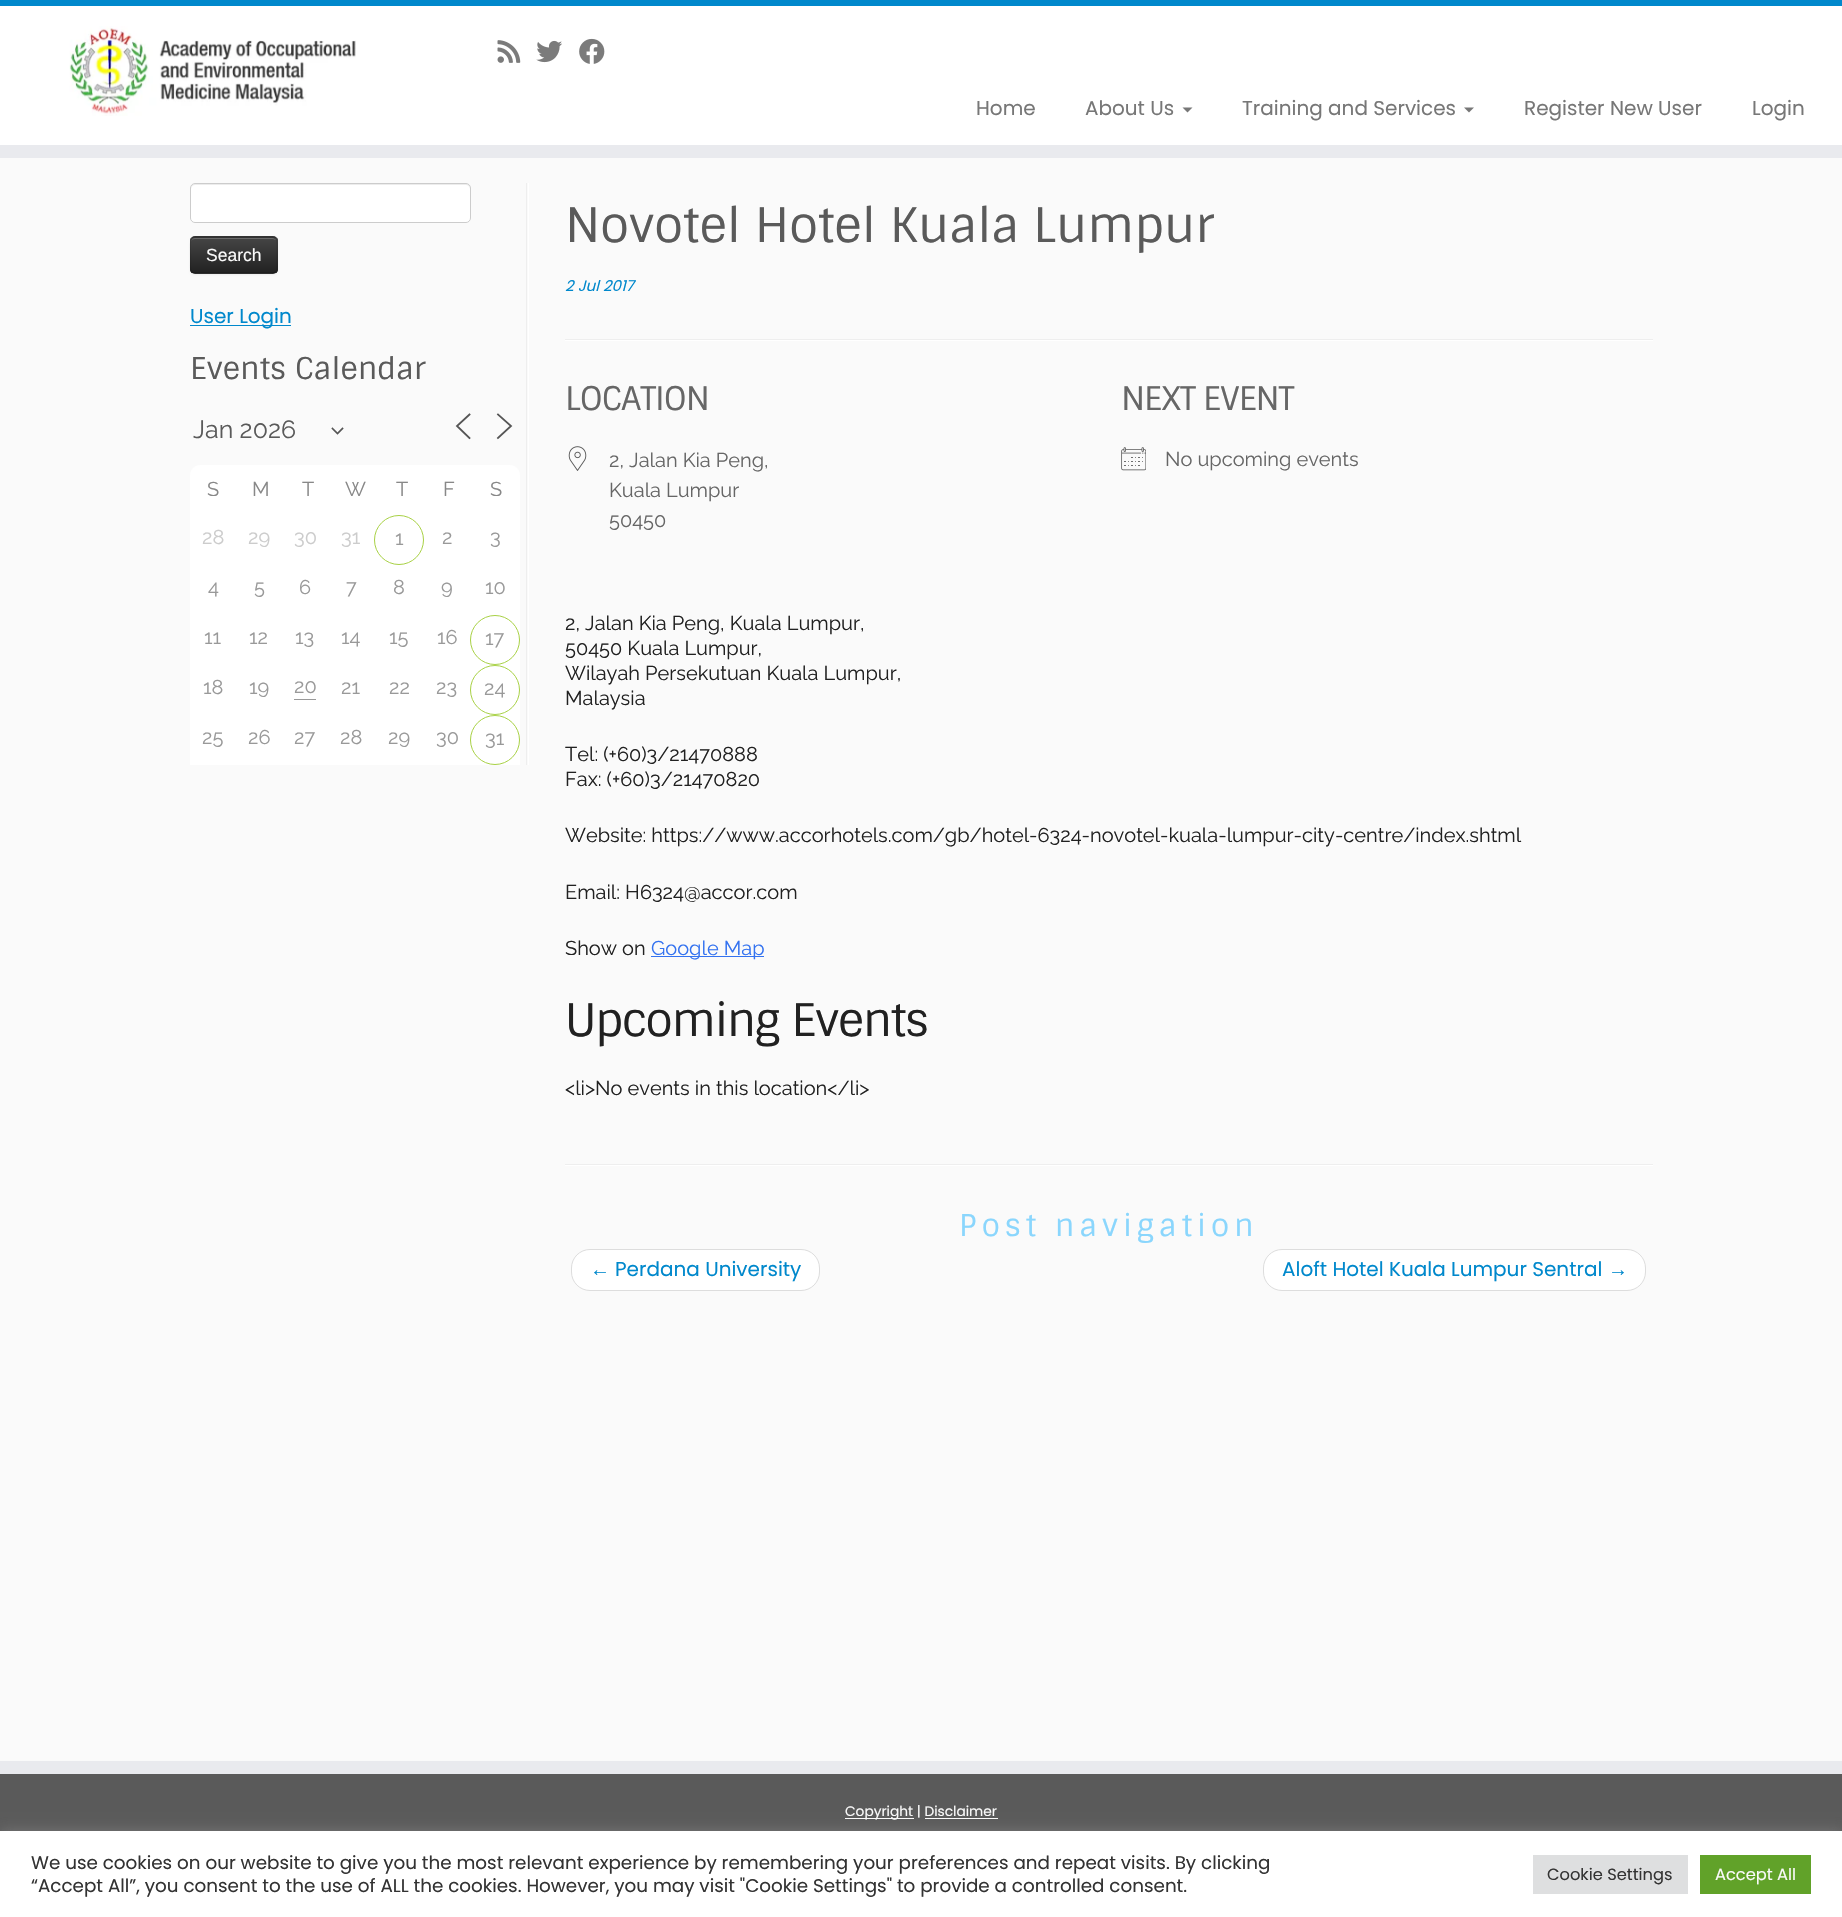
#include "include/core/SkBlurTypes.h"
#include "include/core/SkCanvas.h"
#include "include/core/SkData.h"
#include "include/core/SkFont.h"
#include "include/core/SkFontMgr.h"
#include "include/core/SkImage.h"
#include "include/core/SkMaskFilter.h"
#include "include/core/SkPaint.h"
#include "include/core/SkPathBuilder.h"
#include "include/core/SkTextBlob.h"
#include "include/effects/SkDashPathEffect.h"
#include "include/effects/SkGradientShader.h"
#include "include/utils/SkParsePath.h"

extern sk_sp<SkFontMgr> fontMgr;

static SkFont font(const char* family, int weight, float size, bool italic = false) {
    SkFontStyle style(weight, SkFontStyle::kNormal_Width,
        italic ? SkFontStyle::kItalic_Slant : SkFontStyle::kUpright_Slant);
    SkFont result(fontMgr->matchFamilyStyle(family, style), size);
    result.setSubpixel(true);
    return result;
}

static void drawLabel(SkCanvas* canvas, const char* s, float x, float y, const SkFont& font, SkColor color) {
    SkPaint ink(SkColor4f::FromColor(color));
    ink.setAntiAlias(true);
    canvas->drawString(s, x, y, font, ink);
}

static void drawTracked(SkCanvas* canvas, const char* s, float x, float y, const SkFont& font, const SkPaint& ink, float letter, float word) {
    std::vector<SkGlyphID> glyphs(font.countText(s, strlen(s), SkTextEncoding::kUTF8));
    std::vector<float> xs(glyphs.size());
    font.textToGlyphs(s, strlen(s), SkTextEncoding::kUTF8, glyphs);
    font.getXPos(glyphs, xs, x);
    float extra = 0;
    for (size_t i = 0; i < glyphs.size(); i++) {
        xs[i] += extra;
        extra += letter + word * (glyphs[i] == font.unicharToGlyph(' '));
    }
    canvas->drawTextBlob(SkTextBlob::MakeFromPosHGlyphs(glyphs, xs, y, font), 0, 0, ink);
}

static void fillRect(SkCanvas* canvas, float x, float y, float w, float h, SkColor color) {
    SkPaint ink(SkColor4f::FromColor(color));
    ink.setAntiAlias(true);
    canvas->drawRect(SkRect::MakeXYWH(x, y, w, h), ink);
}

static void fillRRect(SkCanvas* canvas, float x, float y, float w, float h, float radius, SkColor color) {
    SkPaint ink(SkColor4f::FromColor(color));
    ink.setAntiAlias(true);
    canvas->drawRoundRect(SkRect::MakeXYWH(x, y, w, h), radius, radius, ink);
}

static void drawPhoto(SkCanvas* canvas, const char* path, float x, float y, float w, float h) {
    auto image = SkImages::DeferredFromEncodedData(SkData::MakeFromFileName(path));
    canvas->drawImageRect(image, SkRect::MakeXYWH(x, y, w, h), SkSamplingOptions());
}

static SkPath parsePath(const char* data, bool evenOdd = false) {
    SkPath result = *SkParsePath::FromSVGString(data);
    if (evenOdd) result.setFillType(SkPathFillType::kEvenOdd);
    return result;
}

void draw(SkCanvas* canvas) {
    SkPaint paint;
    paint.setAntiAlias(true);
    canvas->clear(0xFFFAFAFA);
    fillRect(canvas, 0, 6, 1842, 139, 0xFFFFFFFF);
    fillRect(canvas, 0, 0, 1842, 6, 0xFF0088CC);
    fillRect(canvas, 0, 145, 1842, 13, 0xFFE9EAEE);
    drawPhoto(canvas, "assets/img1.png", 69, 26, 287, 90);
    drawPhoto(canvas, "assets/img2.png", 497, 40, 24, 23);
    drawPhoto(canvas, "assets/img3.png", 536, 40, 26, 23);
    drawPhoto(canvas, "assets/img4.png", 579, 38, 26, 26);
    SkFont font1 = font("Poppins", 400, 20);
    drawLabel(canvas, "Home", 976, 115, font1, 0xFF777777);
    drawLabel(canvas, "About Us", 1085, 115, font1, 0xFF777777);
    paint.setColor(0xFF777777);
    canvas->drawPath(parsePath("M1182.5 107.5H1192.5L1187.5 112.5Z"), paint);
    drawLabel(canvas, "Training and Services", 1242, 115, font1, 0xFF777777);
    canvas->drawPath(parsePath("M1464 107.5H1474L1469 112.5Z"), paint);
    drawLabel(canvas, "Register New User", 1524, 115, font1, 0xFF777777);
    drawLabel(canvas, "Login", 1752, 115, font1, 0xFF777777);
    fillRect(canvas, 526, 183, 1, 582, 0xFFEEEEEE);
    fillRRect(canvas, 190, 183, 281, 40, 5, 0xFFFFFFFF);
    paint.setColor(0xFFECECEC);
    canvas->drawPath(parsePath("M195 185H466C468 185 470 187 470 189C470 186 469 184 466 184H195C192 184 191 186 191 189C191 187 193 185 195 185Z"), paint);
    paint.setStroke(true);
    paint.setStrokeWidth(1);
    paint.setColor(0xFFCCCCCC);
    canvas->drawRoundRect(SkRect::MakeXYWH(190.5f, 183.5f, 280, 39), 4.5f, 4.5f, paint);
    paint.setStroke(false);
    paint.setColor(0x0D000000);
    paint.setMaskFilter(SkMaskFilter::MakeBlur(kNormal_SkBlurStyle, 1));
    canvas->drawRoundRect(SkRect::MakeXYWH(190, 238, 88, 37), 5, 5, paint);
    paint.setMaskFilter(nullptr);
    fillRRect(canvas, 190, 236, 88, 38, 5, 0xFF363636);
    canvas->save();
    canvas->clipPath(parsePath("M195 236H273C276 236 278 238 278 241V269C278 272 276 274 273 274H195C192 274 190 272 190 269V241C190 238 192 236 195 236Z"), true);
    {
        const SkColor colors[] = {0xFF444444, 0xFF222222};
        const float stops[] = {0, 1};
        const SkPoint ends[] = {{234, 238}, {234, 273}};
        paint.setShader(SkGradientShader::MakeLinear(ends, colors, stops, 2, SkTileMode::kClamp));
        paint.setAlpha(255);
    }
    canvas->drawRect(SkRect::MakeXYWH(190, 238, 88, 35), paint);
    canvas->restore();
    paint.setShader(nullptr);
    paint.setColor(0xFF696969);
    canvas->drawPath(parsePath("M195 239H273L276 240C275 239 274 238 272 238H195C193 238 191 240 191 242C191 240 193 239 195 239Z"), paint);
    paint.setStroke(true);
    paint.setStrokeWidth(1.2f);
    paint.setColor(0x40000000);
    canvas->drawPath(parsePath("M275.5 272L273 273H194.5L192 272"), paint);
    paint.setColor(0x1A000000);
    canvas->drawPath(parsePath("M192 272C190 270 190.5 266.5 190.5 264V255C190.5 235 187.5 237 208 237H259.5C280 237 277 235 277 255V264C277 266.5 277.5 270 275.5 272"), paint);
    SkFont font2 = font("Liberation Sans", 400, 17.5f);
    drawLabel(canvas, "Search", 206, 261, font2, 0xFFFAFAFA);
    fillRect(canvas, 528, 183, 1, 582, 0xFFFFFFFF);
    fillRect(canvas, 190, 325, 101, 1, 0xFF0088CC);
    drawLabel(canvas, "User Login", 190, 323, font1, 0xFF0088CC);
    SkFont font3 = font("Sintony", 400, 30);
    drawLabel(canvas, "Events Calendar", 190, 379, font3, 0xFF5A5A5A);
    paint.setStrokeWidth(1.7f);
    paint.setStrokeCap(SkPaint::kSquare_Cap);
    paint.setColor(0xFF555555);
    canvas->drawPath(parsePath("M332.5 428.5L337.5 433.5L342.5 428.5"), paint);
    SkFont font4 = font("Raleway", 400, 25);
    drawLabel(canvas, "Jan 2026", 193, 438, font4, 0xFF5A5A5A);
    paint.setStrokeWidth(1.8f);
    canvas->drawPath(parsePath("M469.5 438L457 426L469.5 414.5M498 438L511 426L498 414.5"), paint);
    paint.setStroke(false);
    paint.setColor(0xFFFFFFFF);
    canvas->drawPath(parsePath("M200 465H510C515.5 465 520 469.5 520 475V515H190V475C190 469.5 194.5 465 200 465Z"), paint);
    SkFont font5 = font("Raleway", 400, 20);
    drawLabel(canvas, "S", 207, 496, font5, 0xFF888888);
    drawLabel(canvas, "M", 252, 496, font5, 0xFF888888);
    drawLabel(canvas, "T", 302, 496, font5, 0xFF888888);
    drawLabel(canvas, "W", 345, 496, font5, 0xFF888888);
    drawLabel(canvas, "T", 396, 496, font5, 0xFF888888);
    drawLabel(canvas, "F", 443, 496, font5, 0xFF888888);
    drawLabel(canvas, "S", 490, 496, font5, 0xFF888888);
    fillRect(canvas, 190, 515, 330, 250, 0xFFFFFFFF);
    drawLabel(canvas, "28", 202, 544, font5, 0xFFCCCCCC);
    drawLabel(canvas, "29", 248, 544, font5, 0xFFCCCCCC);
    drawLabel(canvas, "30", 294, 544, font5, 0xFFCCCCCC);
    drawLabel(canvas, "31", 341, 544, font5, 0xFFCCCCCC);
    paint.setStroke(true);
    paint.setStrokeWidth(1);
    paint.setStrokeCap(SkPaint::kButt_Cap);
    paint.setColor(0xFFA8D144);
    canvas->drawCircle(399, 540, 24.5f, paint);
    drawLabel(canvas, "1", 395, 545, font5, 0xFF999999);
    drawLabel(canvas, "2", 442, 544, font5, 0xFF999999);
    drawLabel(canvas, "3", 490, 544, font5, 0xFF999999);
    drawLabel(canvas, "4", 208, 594, font5, 0xFF999999);
    drawLabel(canvas, "5", 254, 594, font5, 0xFF999999);
    drawLabel(canvas, "6", 299, 594, font5, 0xFF999999);
    drawLabel(canvas, "7", 346, 594, font5, 0xFF999999);
    drawLabel(canvas, "8", 393, 594, font5, 0xFF999999);
    drawLabel(canvas, "9", 441, 594, font5, 0xFF999999);
    drawLabel(canvas, "10", 485, 594, font5, 0xFF999999);
    drawLabel(canvas, "11", 204, 644, font5, 0xFF999999);
    drawLabel(canvas, "12", 249, 644, font5, 0xFF999999);
    drawLabel(canvas, "13", 295, 644, font5, 0xFF999999);
    drawLabel(canvas, "14", 341, 644, font5, 0xFF999999);
    drawLabel(canvas, "15", 389, 644, font5, 0xFF999999);
    drawLabel(canvas, "16", 437, 644, font5, 0xFF999999);
    canvas->drawCircle(495, 640, 24.5f, paint);
    drawLabel(canvas, "17", 485, 645, font5, 0xFF999999);
    drawLabel(canvas, "18", 203, 694, font5, 0xFF999999);
    drawLabel(canvas, "19", 249, 694, font5, 0xFF999999);
    drawLabel(canvas, "20", 294, 693, font5, 0xFF999999);
    fillRect(canvas, 294, 699, 22, 1, 0xFF999999);
    drawLabel(canvas, "21", 341, 694, font5, 0xFF999999);
    drawLabel(canvas, "22", 389, 694, font5, 0xFF999999);
    drawLabel(canvas, "23", 436, 694, font5, 0xFF999999);
    canvas->drawCircle(495, 690, 24.5f, paint);
    drawLabel(canvas, "24", 484, 695, font5, 0xFF999999);
    drawLabel(canvas, "25", 202, 744, font5, 0xFF999999);
    drawLabel(canvas, "26", 248, 744, font5, 0xFF999999);
    drawLabel(canvas, "27", 294, 744, font5, 0xFF999999);
    drawLabel(canvas, "28", 340, 744, font5, 0xFF999999);
    drawLabel(canvas, "29", 388, 744, font5, 0xFF999999);
    drawLabel(canvas, "30", 436, 744, font5, 0xFF999999);
    canvas->drawCircle(495, 740, 24.5f, paint);
    drawLabel(canvas, "31", 485, 745, font5, 0xFF999999);
    SkFont font6 = font("Sintony", 400, 47.5f);
    drawLabel(canvas, "Novotel Hotel Kuala Lumpur", 565, 242, font6, 0xFF5A5A5A);
    SkFont font7 = font("Poppins", 400, 15, true);
    drawLabel(canvas, "2 Jul 2017", 565, 291, font7, 0xFF0088CC);
    fillRect(canvas, 565, 339, 1088, 1, 0xFFEEEEEE);
    fillRect(canvas, 565, 340, 1088, 1, 0xFFFFFFFF);
    SkFont font8 = font("Sintony", 400, 32.5f);
    paint.setStroke(false);
    paint.setColor(0xFF666666);
    drawTracked(canvas, "LOCATION", 565, 410, font8, paint, -1.25f, 0);
    drawPhoto(canvas, "assets/img5.png", 568, 446, 19, 25);
    drawLabel(canvas, "2, Jalan Kia Peng,", 609, 467, font5, 0xFF666666);
    drawLabel(canvas, "Kuala Lumpur", 609, 497, font5, 0xFF666666);
    drawLabel(canvas, "50450", 609, 527, font5, 0xFF666666);
    drawTracked(canvas, "NEXT EVENT", 1121, 410, font8, paint, -1.25f, 0);
    drawPhoto(canvas, "assets/img6.png", 1121, 447, 25, 24);
    drawLabel(canvas, "No upcoming events", 1165, 466, font5, 0xFF666666);
    drawLabel(canvas, "2, Jalan Kia Peng, Kuala Lumpur,", 565, 630, font5, 0xFF212121);
    drawLabel(canvas, "50450 Kuala Lumpur,", 565, 655, font5, 0xFF212121);
    drawLabel(canvas, "Wilayah Persekutuan Kuala Lumpur,", 565, 680, font5, 0xFF212121);
    drawLabel(canvas, "Malaysia", 565, 705, font5, 0xFF212121);
    drawLabel(canvas, "Tel: (+60)3/21470888", 565, 761, font5, 0xFF212121);
    drawLabel(canvas, "Fax: (+60)3/21470820", 565, 786, font5, 0xFF212121);
    drawLabel(canvas, "Website: https://www.accorhotels.com/gb/hotel-6324-novotel-kuala-lumpur-city-centre/index.shtml", 565, 842, font5, 0xFF212121);
    drawLabel(canvas, "Email: H6324@accor.com", 565, 899, font5, 0xFF212121);
    drawLabel(canvas, "Show on", 565, 955, font5, 0xFF212121);
    fillRect(canvas, 651, 956, 113, 1, 0xFF3372F0);
    drawLabel(canvas, "Google Map", 651, 955, font5, 0xFF3372F0);
    SkFont font9 = font("Sintony", 400, 45);
    paint.setColor(0xFF212121);
    drawTracked(canvas, "Upcoming Events", 565, 1036, font9, paint, -1.25f, 0);
    drawLabel(canvas, "<li>No events in this location</li>", 565, 1095, font5, 0xFF212121);
    fillRect(canvas, 565, 1164, 1088, 1, 0xFFEEEEEE);
    fillRect(canvas, 565, 1165, 1088, 1, 0xFFFFFFFF);
    paint.setColor(0xFF8AD6FD);
    drawTracked(canvas, "Post navigation", 959, 1236, font3, paint, 5, 0);
    paint.setColor(0xFFFFFFFF);
    canvas->drawRoundRect(SkRect::MakeXYWH(571.5f, 1249.5f, 248, 41), 18.5f, 18.5f, paint);
    paint.setStroke(true);
    paint.setColor(0xFFDDDDDD);
    canvas->drawRoundRect(SkRect::MakeXYWH(571.5f, 1249.5f, 248, 41), 18.5f, 18.5f, paint);
    SkFont font10 = font("Liberation Serif", 400, 20);
    drawLabel(canvas, "←", 590, 1276, font10, 0xFF0088CC);
    drawLabel(canvas, "Perdana University", 615, 1276, font1, 0xFF0088CC);
    paint.setStroke(false);
    paint.setColor(0xFFFFFFFF);
    canvas->drawRoundRect(SkRect::MakeXYWH(1263.5f, 1249.5f, 382, 41), 18.5f, 18.5f, paint);
    paint.setStroke(true);
    paint.setColor(0xFFDDDDDD);
    canvas->drawRoundRect(SkRect::MakeXYWH(1263.5f, 1249.5f, 382, 41), 18.5f, 18.5f, paint);
    drawLabel(canvas, "Aloft Hotel Kuala Lumpur Sentral", 1282, 1276, font1, 0xFF0088CC);
    drawLabel(canvas, "→", 1608, 1276, font10, 0xFF0088CC);
    fillRect(canvas, 0, 1774, 1842, 57, 0xFF5A5A5A);
    fillRect(canvas, 0, 1761, 1842, 13, 0xFFE9EAEE);
    fillRect(canvas, 845, 1818, 69, 1, 0xFFFAFAFA);
    SkFont font11 = font("Poppins", 400, 13.75f);
    drawLabel(canvas, "Copyright | Disclaimer", 845, 1816, font11, 0xFFFAFAFA);
    fillRect(canvas, 925, 1818, 73, 1, 0xFFFAFAFA);
    paint.setStroke(false);
    paint.setColor(0x4DACABAB);
    paint.setMaskFilter(SkMaskFilter::MakeBlur(kNormal_SkBlurStyle, 6));
    canvas->drawRect(SkRect::MakeXYWH(0, 1830, 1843, 86), paint);
    paint.setMaskFilter(nullptr);
    fillRect(canvas, 0, 1831, 1842, 86, 0xFFFFFFFF);
    SkFont font12 = font("Poppins", 400, 18.33f);
    drawLabel(canvas, "We use cookies on our website to give you the most relevant experience by remembering your preferences and repeat visits. By clicking", 31, 1869, font12, 0xFF333333);
    drawLabel(canvas, "“Accept All”, you consent to the use of ALL the cookies. However, you may visit \"Cookie Settings\" to provide a controlled consent.", 31, 1892, font12, 0xFF333333);
    fillRect(canvas, 1533, 1855, 155, 39, 0xFFDEDFE0);
    SkFont font13 = font("Poppins", 400, 16.25f);
    drawLabel(canvas, "Cookie Settings", 1547, 1880, font13, 0xFF333333);
    fillRect(canvas, 1700, 1855, 111, 39, 0xFF61A229);
    drawLabel(canvas, "Accept All", 1715, 1880, font13, 0xFFFAFAFA);
}
